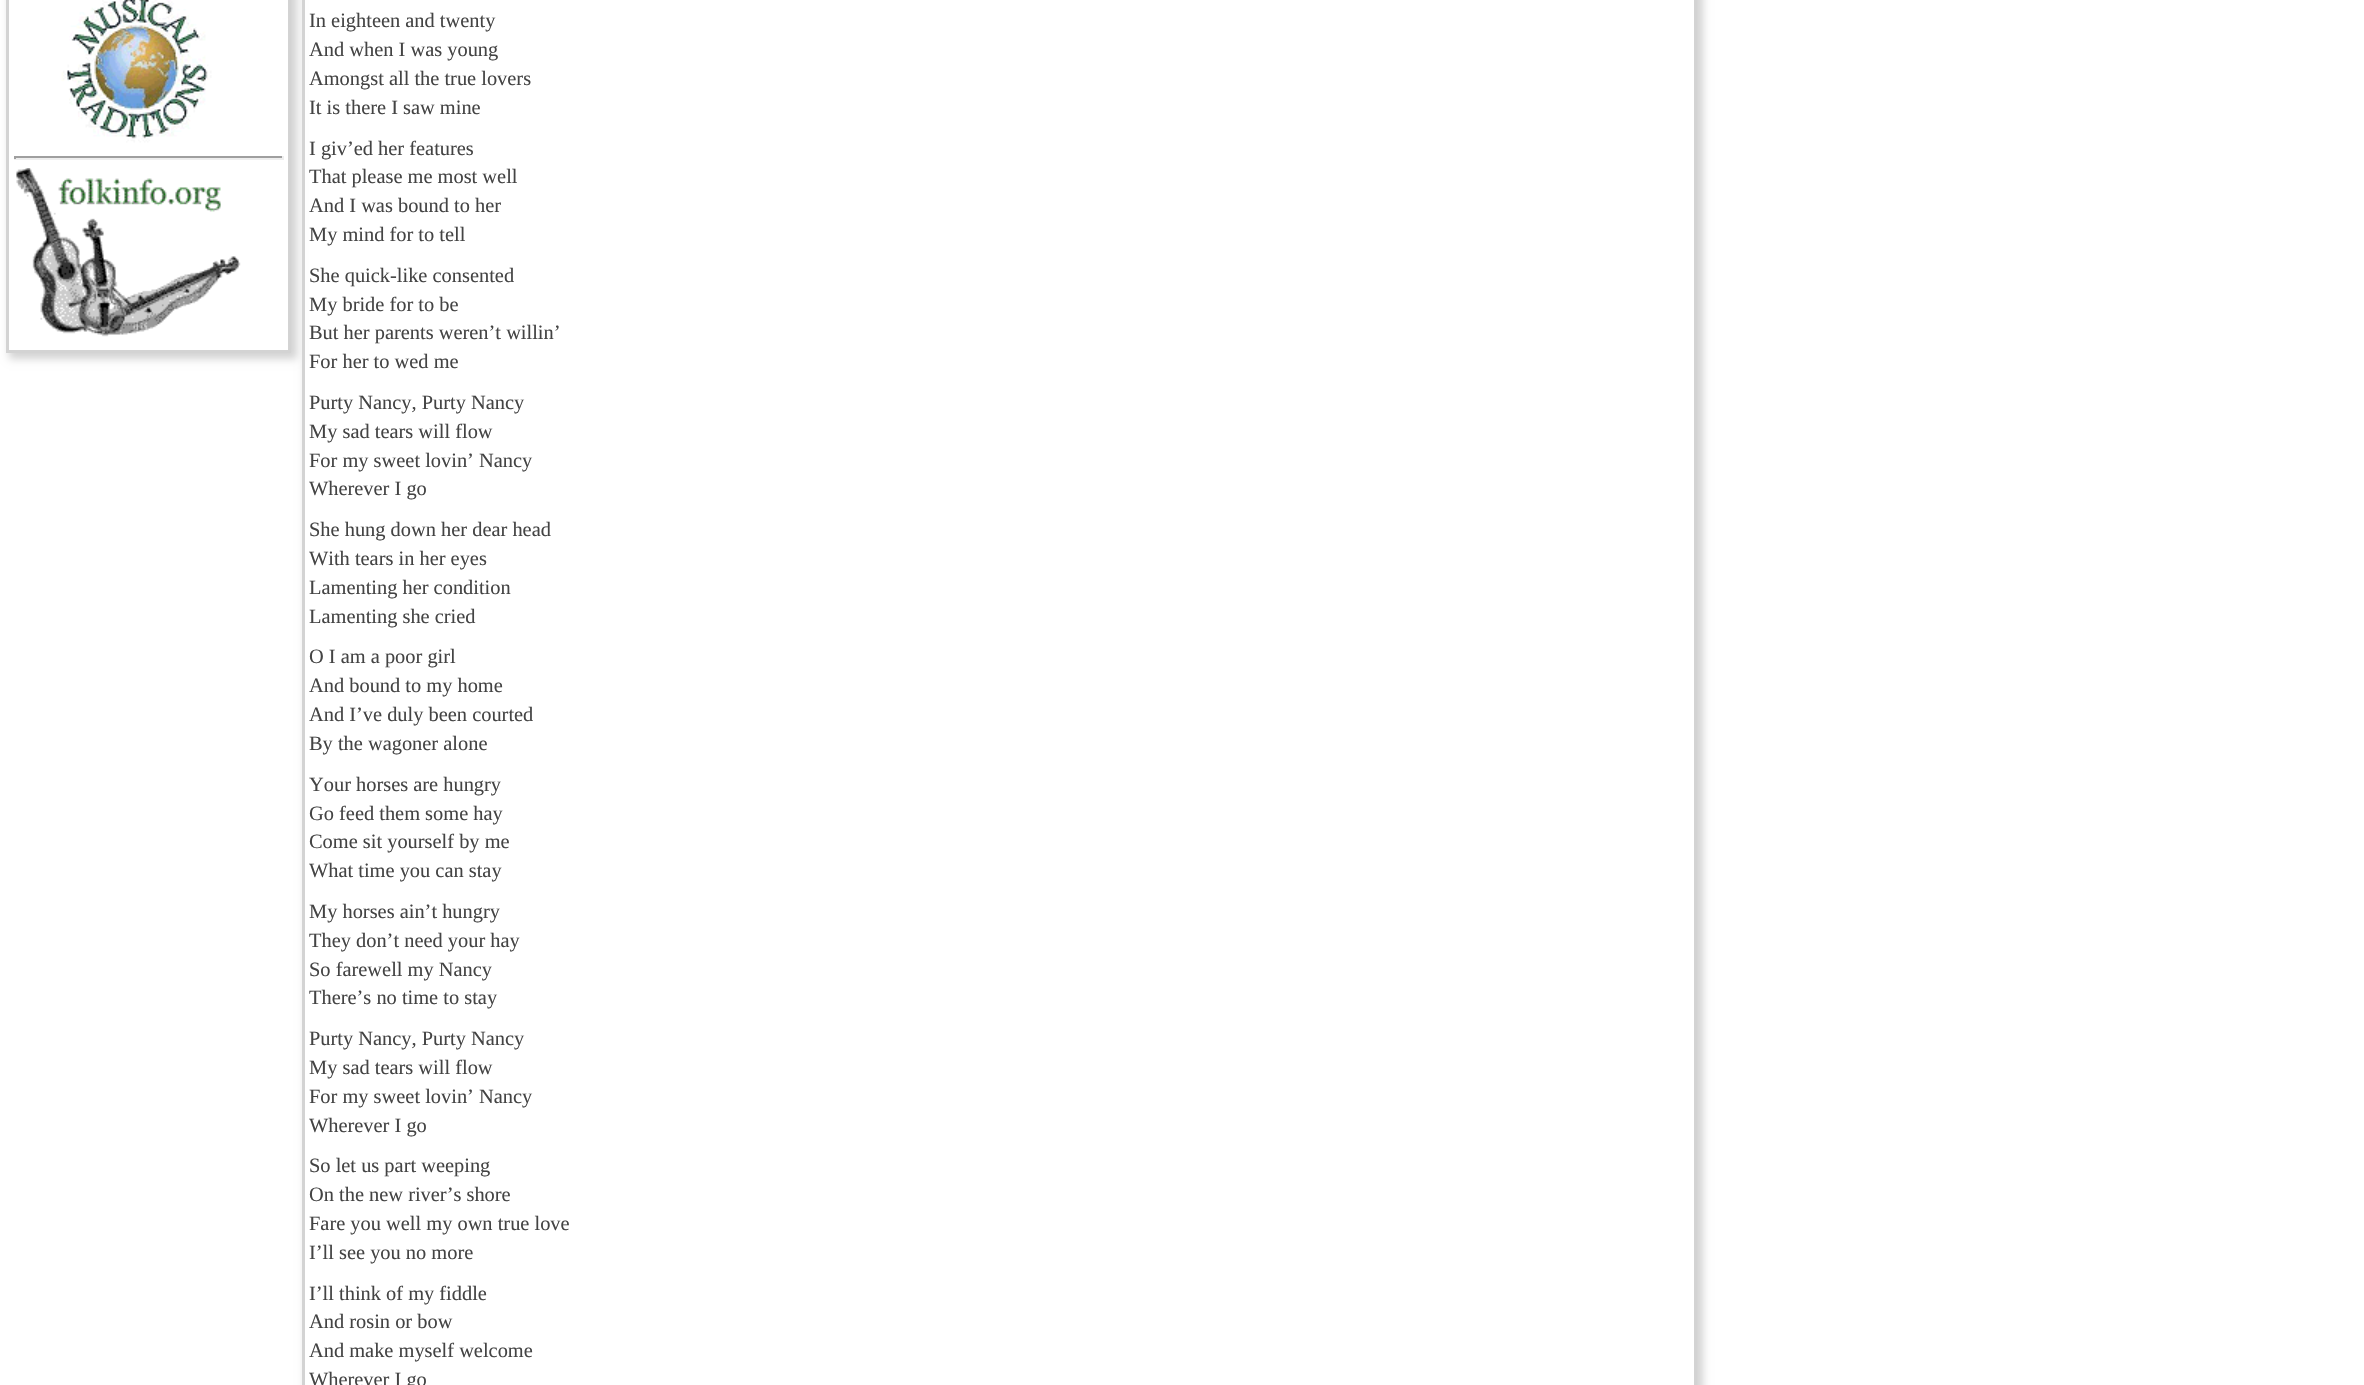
#include "include/core/SkBlurTypes.h"
#include "include/core/SkCanvas.h"
#include "include/core/SkData.h"
#include "include/core/SkFont.h"
#include "include/core/SkFontMgr.h"
#include "include/core/SkImage.h"
#include "include/core/SkMaskFilter.h"
#include "include/core/SkPaint.h"
#include "include/core/SkPathBuilder.h"
#include "include/core/SkTextBlob.h"
#include "include/effects/SkDashPathEffect.h"
#include "include/effects/SkGradientShader.h"
#include "include/utils/SkParsePath.h"

extern sk_sp<SkFontMgr> fontMgr;

static SkFont font(const char* family, int weight, float size, bool italic = false) {
    SkFontStyle style(weight, SkFontStyle::kNormal_Width,
        italic ? SkFontStyle::kItalic_Slant : SkFontStyle::kUpright_Slant);
    SkFont result(fontMgr->matchFamilyStyle(family, style), size);
    result.setSubpixel(true);
    return result;
}

static void drawLabel(SkCanvas* canvas, const char* s, float x, float y, const SkFont& font, SkColor color) {
    SkPaint ink(SkColor4f::FromColor(color));
    ink.setAntiAlias(true);
    canvas->drawString(s, x, y, font, ink);
}

static void fillRect(SkCanvas* canvas, float x, float y, float w, float h, SkColor color) {
    SkPaint ink(SkColor4f::FromColor(color));
    ink.setAntiAlias(true);
    canvas->drawRect(SkRect::MakeXYWH(x, y, w, h), ink);
}

static void drawPhoto(SkCanvas* canvas, const char* path, float x, float y, float w, float h) {
    auto image = SkImages::DeferredFromEncodedData(SkData::MakeFromFileName(path));
    canvas->drawImageRect(image, SkRect::MakeXYWH(x, y, w, h), SkSamplingOptions());
}

static SkPath parsePath(const char* data, bool evenOdd = false) {
    SkPath result = *SkParsePath::FromSVGString(data);
    if (evenOdd) result.setFillType(SkPathFillType::kEvenOdd);
    return result;
}

void draw(SkCanvas* canvas) {
    SkPaint paint;
    paint.setAntiAlias(true);
    canvas->clear(0xFFFFFFFF);
    canvas->save();
    canvas->clipPath(parsePath("M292 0H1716V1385H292ZM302-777H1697V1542H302Z", true), true);
    paint.setColor(0xFFD3D3D3);
    paint.setMaskFilter(SkMaskFilter::MakeBlur(kNormal_SkBlurStyle, 4));
    canvas->drawRect(SkRect::MakeXYWH(305, -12, 1398, 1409), paint);
    paint.setMaskFilter(nullptr);
    canvas->restore();
    paint.setStroke(true);
    paint.setStrokeWidth(3);
    canvas->drawRect(SkRect::MakeXYWH(303.5f, -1.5f, 1392, 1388), paint);
    canvas->save();
    canvas->clipPath(parsePath("M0 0H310V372H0ZM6-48H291V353H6Z", true), true);
    paint.setStroke(false);
    paint.setMaskFilter(SkMaskFilter::MakeBlur(kNormal_SkBlurStyle, 4));
    canvas->drawRect(SkRect::MakeXYWH(9, -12, 288, 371), paint);
    paint.setMaskFilter(nullptr);
    canvas->restore();
    paint.setStroke(true);
    canvas->drawRect(SkRect::MakeXYWH(7.5f, -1.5f, 282, 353), paint);
    drawPhoto(canvas, "assets/img1.png", 61, 0, 151, 143);
    fillRect(canvas, 14, 156, 270, 2, 0xFF9F9F9F);
    fillRect(canvas, 282, 156, 2, 3, 0xFFEEEEEE);
    fillRect(canvas, 14, 158, 270, 2, 0xFFEEEEEE);
    fillRect(canvas, 14, 156, 2, 3, 0xFF9F9F9F);
    drawPhoto(canvas, "assets/img2.png", 16, 168, 225, 169);
    SkFont font1 = font("Liberation Serif", 400, 20.4f);
    drawLabel(canvas, "In eighteen and twenty", 309, 27, font1, 0xFF444444);
    drawLabel(canvas, "And when I was young", 309, 56, font1, 0xFF444444);
    drawLabel(canvas, "Amongst all the true lovers", 309, 85, font1, 0xFF444444);
    drawLabel(canvas, "It is there I saw mine", 309, 114, font1, 0xFF444444);
    drawLabel(canvas, "I giv’ed her features", 309, 155, font1, 0xFF444444);
    drawLabel(canvas, "That please me most well", 309, 183, font1, 0xFF444444);
    drawLabel(canvas, "And I was bound to her", 309, 212, font1, 0xFF444444);
    drawLabel(canvas, "My mind for to tell", 309, 241, font1, 0xFF444444);
    drawLabel(canvas, "She quick-like consented", 309, 282, font1, 0xFF444444);
    drawLabel(canvas, "My bride for to be", 309, 311, font1, 0xFF444444);
    drawLabel(canvas, "But her parents weren’t willin’", 309, 339, font1, 0xFF444444);
    drawLabel(canvas, "For her to wed me", 309, 368, font1, 0xFF444444);
    drawLabel(canvas, "Purty Nancy, Purty Nancy", 309, 409, font1, 0xFF444444);
    drawLabel(canvas, "My sad tears will flow", 309, 438, font1, 0xFF444444);
    drawLabel(canvas, "For my sweet lovin’ Nancy", 309, 467, font1, 0xFF444444);
    drawLabel(canvas, "Wherever I go", 309, 495, font1, 0xFF444444);
    drawLabel(canvas, "She hung down her dear head", 309, 536, font1, 0xFF444444);
    drawLabel(canvas, "With tears in her eyes", 309, 565, font1, 0xFF444444);
    drawLabel(canvas, "Lamenting her condition", 309, 594, font1, 0xFF444444);
    drawLabel(canvas, "Lamenting she cried", 309, 623, font1, 0xFF444444);
    drawLabel(canvas, "O I am a poor girl", 309, 663, font1, 0xFF444444);
    drawLabel(canvas, "And bound to my home", 309, 692, font1, 0xFF444444);
    drawLabel(canvas, "And I’ve duly been courted", 309, 721, font1, 0xFF444444);
    drawLabel(canvas, "By the wagoner alone", 309, 750, font1, 0xFF444444);
    drawLabel(canvas, "Your horses are hungry", 309, 791, font1, 0xFF444444);
    drawLabel(canvas, "Go feed them some hay", 309, 820, font1, 0xFF444444);
    drawLabel(canvas, "Come sit yourself by me", 309, 848, font1, 0xFF444444);
    drawLabel(canvas, "What time you can stay", 309, 877, font1, 0xFF444444);
    drawLabel(canvas, "My horses ain’t hungry", 309, 918, font1, 0xFF444444);
    drawLabel(canvas, "They don’t need your hay", 309, 947, font1, 0xFF444444);
    drawLabel(canvas, "So farewell my Nancy", 309, 976, font1, 0xFF444444);
    drawLabel(canvas, "There’s no time to stay", 309, 1004, font1, 0xFF444444);
    drawLabel(canvas, "Purty Nancy, Purty Nancy", 309, 1045, font1, 0xFF444444);
    drawLabel(canvas, "My sad tears will flow", 309, 1074, font1, 0xFF444444);
    drawLabel(canvas, "For my sweet lovin’ Nancy", 309, 1103, font1, 0xFF444444);
    drawLabel(canvas, "Wherever I go", 309, 1132, font1, 0xFF444444);
    drawLabel(canvas, "So let us part weeping", 309, 1172, font1, 0xFF444444);
    drawLabel(canvas, "On the new river’s shore", 309, 1201, font1, 0xFF444444);
    drawLabel(canvas, "Fare you well my own true love", 309, 1230, font1, 0xFF444444);
    drawLabel(canvas, "I’ll see you no more", 309, 1259, font1, 0xFF444444);
    drawLabel(canvas, "I’ll think of my fiddle", 309, 1300, font1, 0xFF444444);
    drawLabel(canvas, "And rosin or bow", 309, 1328, font1, 0xFF444444);
    drawLabel(canvas, "And make myself welcome", 309, 1357, font1, 0xFF444444);
    drawLabel(canvas, "Wherever I go", 309, 1386, font1, 0xFF444444);
}
